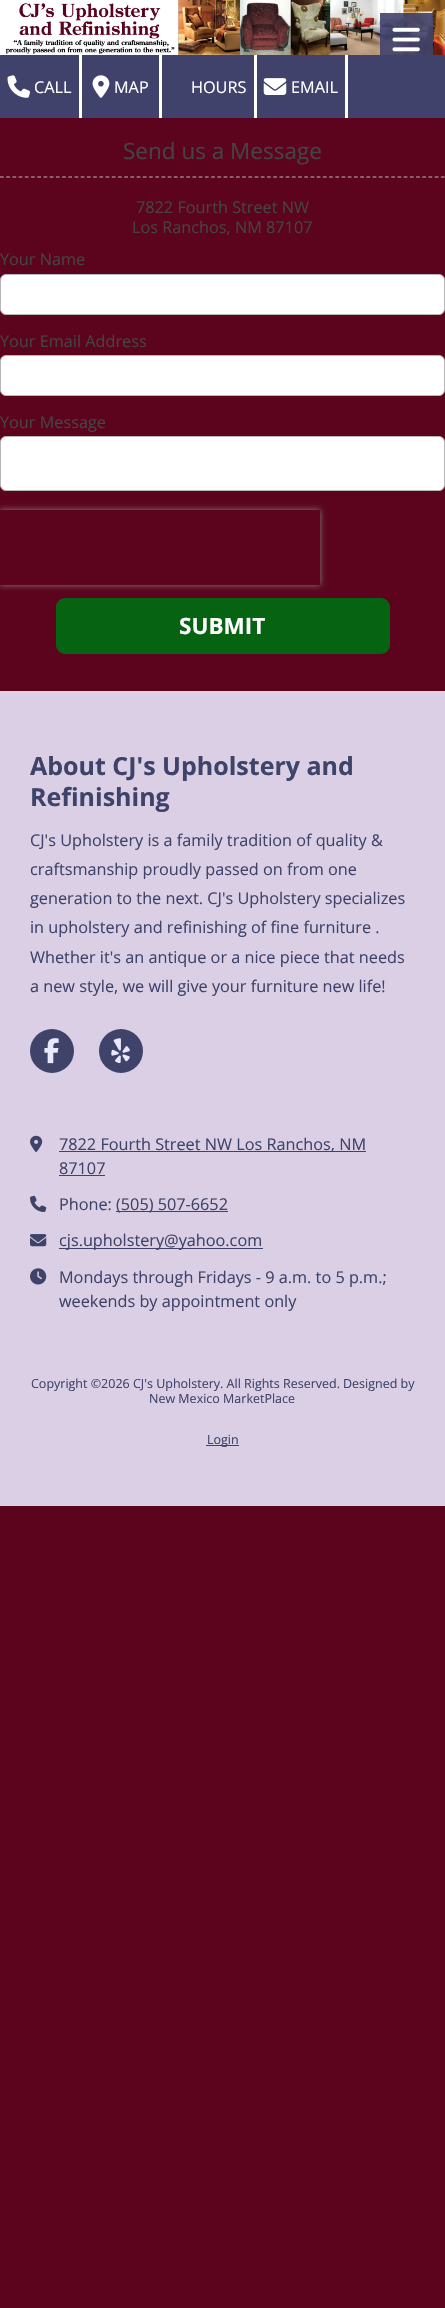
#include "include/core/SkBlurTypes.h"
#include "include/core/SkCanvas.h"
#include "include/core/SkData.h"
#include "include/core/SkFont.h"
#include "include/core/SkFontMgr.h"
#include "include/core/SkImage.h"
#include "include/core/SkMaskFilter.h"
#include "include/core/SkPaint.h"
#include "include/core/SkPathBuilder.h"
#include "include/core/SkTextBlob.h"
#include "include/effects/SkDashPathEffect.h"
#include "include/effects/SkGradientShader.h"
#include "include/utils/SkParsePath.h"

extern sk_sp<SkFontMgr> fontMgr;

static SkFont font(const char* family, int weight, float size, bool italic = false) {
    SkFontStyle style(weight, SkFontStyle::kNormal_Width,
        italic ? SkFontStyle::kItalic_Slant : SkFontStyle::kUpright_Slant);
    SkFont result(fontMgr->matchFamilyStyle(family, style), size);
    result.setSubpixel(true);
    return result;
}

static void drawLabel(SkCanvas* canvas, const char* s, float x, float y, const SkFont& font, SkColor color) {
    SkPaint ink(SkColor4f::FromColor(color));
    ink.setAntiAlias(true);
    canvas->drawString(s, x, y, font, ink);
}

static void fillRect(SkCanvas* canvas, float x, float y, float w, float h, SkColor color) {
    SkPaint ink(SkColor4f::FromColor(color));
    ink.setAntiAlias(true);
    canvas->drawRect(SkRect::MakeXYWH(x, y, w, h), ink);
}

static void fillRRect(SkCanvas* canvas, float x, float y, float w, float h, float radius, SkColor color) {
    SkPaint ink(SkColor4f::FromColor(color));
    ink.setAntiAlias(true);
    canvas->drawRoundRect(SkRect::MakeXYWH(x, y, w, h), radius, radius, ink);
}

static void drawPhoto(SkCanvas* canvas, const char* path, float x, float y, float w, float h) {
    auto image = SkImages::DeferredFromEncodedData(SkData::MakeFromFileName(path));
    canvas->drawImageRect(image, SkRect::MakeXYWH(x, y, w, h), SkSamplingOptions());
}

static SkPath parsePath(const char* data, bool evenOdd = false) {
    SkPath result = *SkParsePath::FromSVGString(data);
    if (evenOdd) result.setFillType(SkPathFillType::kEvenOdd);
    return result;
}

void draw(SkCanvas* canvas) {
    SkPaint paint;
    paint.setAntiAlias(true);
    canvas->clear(0xFF5C041E);
    drawPhoto(canvas, "assets/img1.png", 0, 0, 445, 55);
    fillRect(canvas, 380, 13, 53, 42, 0xE640426B);
    drawPhoto(canvas, "assets/img2.png", 392, 27, 28, 25);
    fillRect(canvas, 0, 55, 445, 63, 0xFF40426B);
    fillRect(canvas, 79, 55, 3, 63, 0xFFFFFFFF);
    drawPhoto(canvas, "assets/img3.png", 7, 75, 23, 23);
    SkFont font1 = font("Open Sans", 400, 16.25f);
    drawLabel(canvas, "CALL", 34, 93, font1, 0xFFFFFFFF);
    fillRect(canvas, 159, 55, 3, 63, 0xFFFFFFFF);
    drawPhoto(canvas, "assets/img4.png", 92, 75, 18, 23);
    drawLabel(canvas, "MAP", 114, 93, font1, 0xFFFFFFFF);
    fillRect(canvas, 254, 55, 3, 63, 0xFFFFFFFF);
    drawLabel(canvas, "HOURS", 191, 93, font1, 0xFFFFFFFF);
    fillRect(canvas, 345, 55, 3, 63, 0xFFFFFFFF);
    drawPhoto(canvas, "assets/img5.png", 263, 78, 24, 17);
    drawLabel(canvas, "EMAIL", 291, 93, font1, 0xFFFFFFFF);
    SkFont font2 = font("Open Sans", 400, 22.5f);
    drawLabel(canvas, "Send us a Message", 123, 159, font2, 0xFF444444);
    paint.setStroke(true);
    paint.setStrokeWidth(1.2f);
    paint.setColor(0xFFB7B7B7);
    paint.setPathEffect(SkDashPathEffect::Make({{3.75f, 2.46f}}, 0));
    canvas->drawPath(parsePath("M0 177H445"), paint);
    paint.setPathEffect(nullptr);
    drawLabel(canvas, "7822 Fourth Street NW", 136, 213, font1, 0xFF444444);
    drawLabel(canvas, "Los Ranchos, NM 87107", 132, 233, font1, 0xFF444444);
    drawLabel(canvas, "Your Name", 0, 265, font1, 0xFF444444);
    paint.setStroke(false);
    paint.setColor(0xFFFFFFFF);
    canvas->drawRoundRect(SkRect::MakeXYWH(0.5f, 274.5f, 444, 40), 5.5f, 5.5f, paint);
    paint.setStroke(true);
    paint.setStrokeWidth(1);
    paint.setColor(0xFFB7B7B7);
    canvas->drawRoundRect(SkRect::MakeXYWH(0.5f, 274.5f, 444, 40), 5.5f, 5.5f, paint);
    drawLabel(canvas, "Your Email Address", 0, 347, font1, 0xFF444444);
    paint.setStroke(false);
    paint.setColor(0xFFFFFFFF);
    canvas->drawRoundRect(SkRect::MakeXYWH(0.5f, 355.5f, 444, 40), 5.5f, 5.5f, paint);
    paint.setStroke(true);
    paint.setColor(0xFFB7B7B7);
    canvas->drawRoundRect(SkRect::MakeXYWH(0.5f, 355.5f, 444, 40), 5.5f, 5.5f, paint);
    drawLabel(canvas, "Your Message", 0, 428, font1, 0xFF444444);
    paint.setStroke(false);
    paint.setColor(0xFFFFFFFF);
    canvas->drawRoundRect(SkRect::MakeXYWH(0.5f, 436.5f, 444, 54), 5.5f, 5.5f, paint);
    paint.setStroke(true);
    paint.setColor(0xFFB7B7B7);
    canvas->drawRoundRect(SkRect::MakeXYWH(0.5f, 436.5f, 444, 54), 5.5f, 5.5f, paint);
    canvas->save();
    canvas->clipPath(parsePath("M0 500H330V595H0ZM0 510H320V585H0Z", true), true);
    paint.setStroke(false);
    paint.setColor(0xFF808080);
    paint.setMaskFilter(SkMaskFilter::MakeBlur(kNormal_SkBlurStyle, 3));
    canvas->drawRect(SkRect::MakeXYWH(0, 510, 320, 75), paint);
    paint.setMaskFilter(nullptr);
    canvas->restore();
    fillRRect(canvas, 56, 598, 334, 56, 9, 0xFF066312);
    SkFont font3 = font("Open Sans", 700, 22.5f);
    drawLabel(canvas, "SUBMIT", 179, 634, font3, 0xFFFFFFFF);
    fillRect(canvas, 0, 691, 445, 815, 0xFFDACFE4);
    SkFont font4 = font("Open Sans", 700, 25);
    drawLabel(canvas, "About CJ's Upholstery and", 30, 775, font4, 0xFF3F4369);
    drawLabel(canvas, "Refinishing", 30, 806, font4, 0xFF3F4369);
    drawLabel(canvas, "CJ's Upholstery is a family tradition of quality &", 30, 846, font1, 0xFF3F4369);
    drawLabel(canvas, "craftsmanship proudly passed on from one", 30, 875, font1, 0xFF3F4369);
    drawLabel(canvas, "generation to the next. CJ's Upholstery specializes", 30, 904, font1, 0xFF3F4369);
    drawLabel(canvas, "in upholstery and refinishing of fine furniture .", 30, 933, font1, 0xFF3F4369);
    drawLabel(canvas, "Whether it's an antique or a nice piece that needs", 30, 963, font1, 0xFF3F4369);
    drawLabel(canvas, "a new style, we will give your furniture new life!", 30, 992, font1, 0xFF3F4369);
    paint.setColor(0xFF3F4369);
    canvas->drawCircle(52, 1051, 22, paint);
    drawPhoto(canvas, "assets/img6.png", 44, 1038, 15, 26);
    canvas->drawCircle(121, 1051, 22, paint);
    drawPhoto(canvas, "assets/img7.png", 111, 1038, 19, 26);
    drawPhoto(canvas, "assets/img8.png", 30, 1135, 13, 17);
    fillRect(canvas, 59, 1151, 307, 1, 0xFF3F4369);
    drawLabel(canvas, "7822 Fourth Street NW Los Ranchos, NM", 59, 1150, font1, 0xFF3F4369);
    drawLabel(canvas, "87107", 59, 1174, font1, 0xFF3F4369);
    fillRect(canvas, 59, 1175, 46, 1, 0xFF3F4369);
    drawPhoto(canvas, "assets/img9.png", 30, 1195, 17, 17);
    drawLabel(canvas, "Phone:", 59, 1210, font1, 0xFF3F4369);
    fillRect(canvas, 116, 1211, 112, 1, 0xFF3F4369);
    drawLabel(canvas, "(505) 507-6652", 116, 1210, font1, 0xFF3F4369);
    drawPhoto(canvas, "assets/img10.png", 30, 1234, 17, 13);
    fillRect(canvas, 59, 1248, 204, 1, 0xFF3F4369);
    drawLabel(canvas, "cjs.upholstery@yahoo.com", 59, 1246, font1, 0xFF3F4369);
    drawPhoto(canvas, "assets/img11.png", 30, 1268, 17, 17);
    drawLabel(canvas, "Mondays through Fridays - 9 a.m. to 5 p.m.;", 59, 1283, font1, 0xFF3F4369);
    drawLabel(canvas, "weekends by appointment only", 59, 1307, font1, 0xFF3F4369);
    SkFont font5 = font("Open Sans", 400, 12.5f);
    drawLabel(canvas, "Copyright ©2026 CJ's Upholstery. All Rights Reserved.", 31, 1388, font5, 0xFF3F4369);
    drawLabel(canvas, "Designed by", 343, 1388, font5, 0xFF3F4369);
    drawLabel(canvas, "New Mexico MarketPlace", 149, 1403, font5, 0xFF3F4369);
    fillRect(canvas, 206, 1445, 33, 1, 0xFF3F4369);
    drawLabel(canvas, "Login", 207, 1444, font5, 0xFF3F4369);
}
